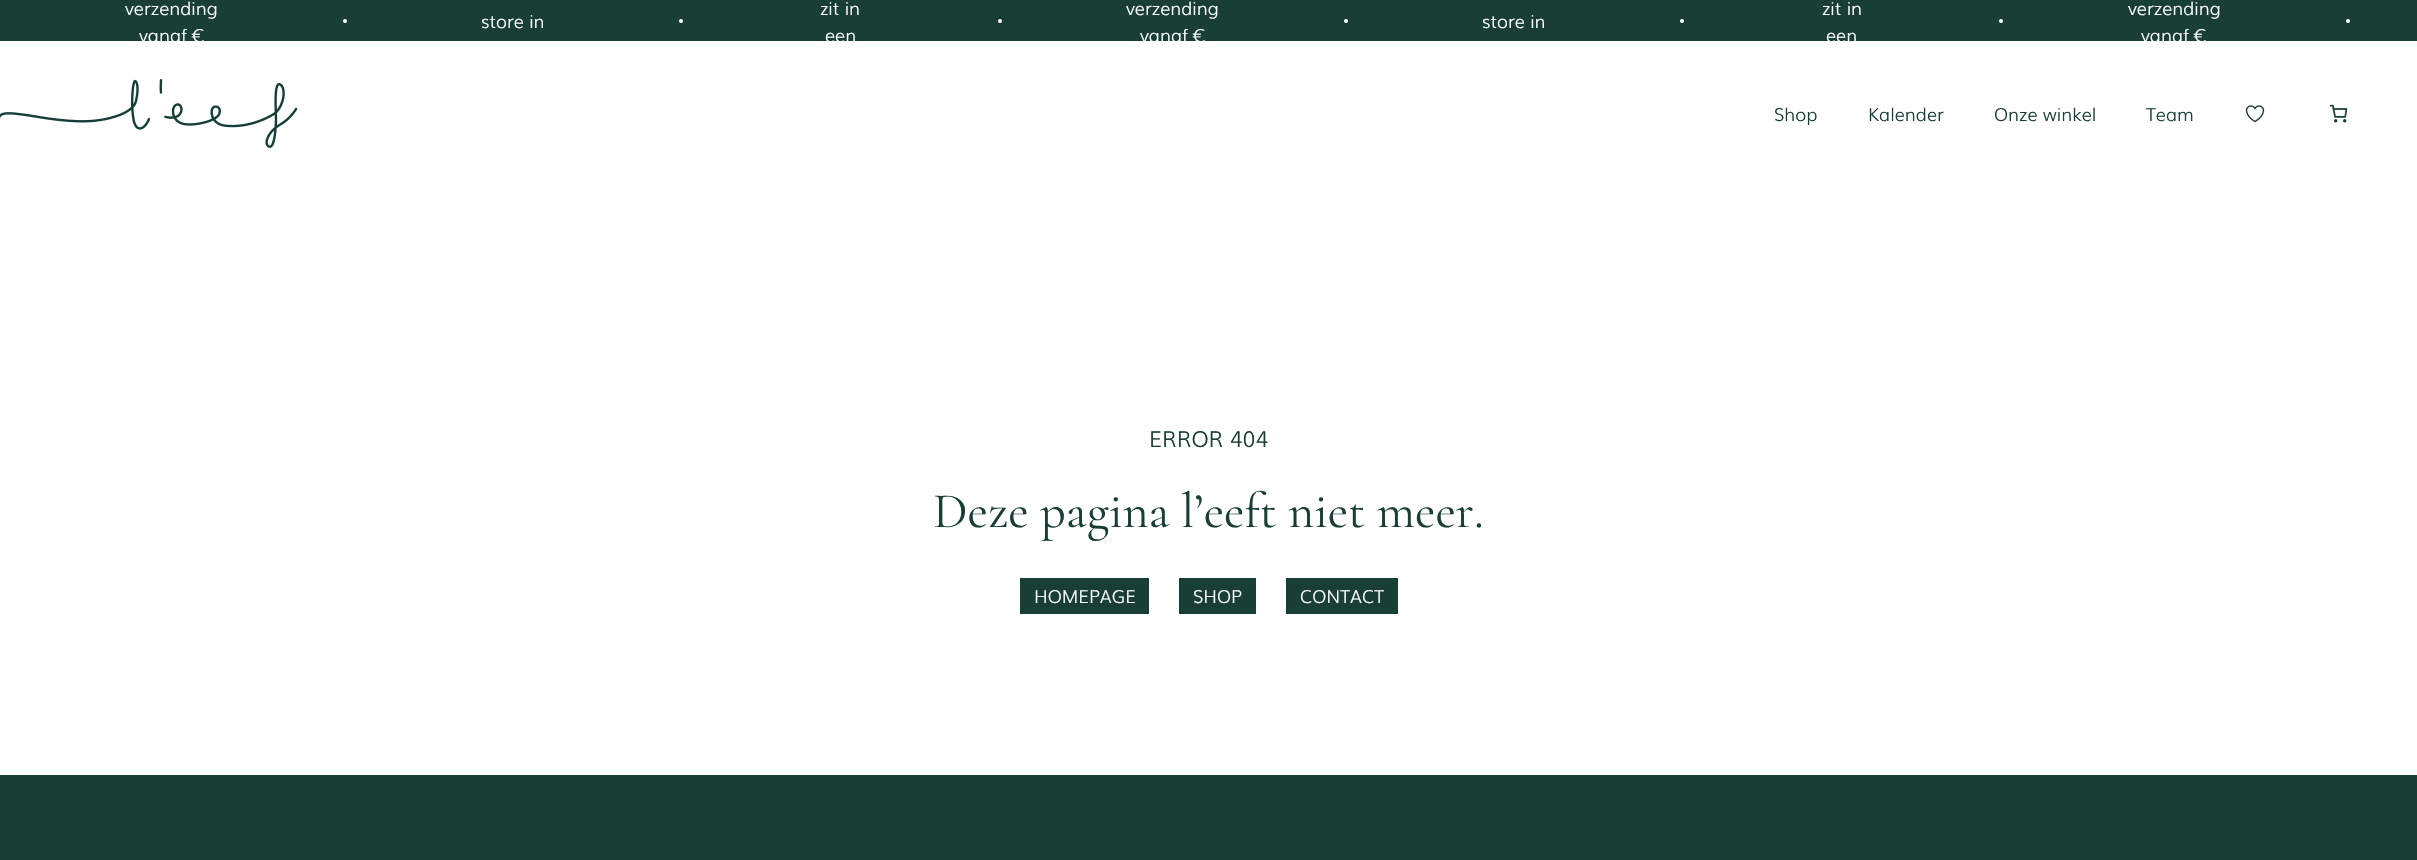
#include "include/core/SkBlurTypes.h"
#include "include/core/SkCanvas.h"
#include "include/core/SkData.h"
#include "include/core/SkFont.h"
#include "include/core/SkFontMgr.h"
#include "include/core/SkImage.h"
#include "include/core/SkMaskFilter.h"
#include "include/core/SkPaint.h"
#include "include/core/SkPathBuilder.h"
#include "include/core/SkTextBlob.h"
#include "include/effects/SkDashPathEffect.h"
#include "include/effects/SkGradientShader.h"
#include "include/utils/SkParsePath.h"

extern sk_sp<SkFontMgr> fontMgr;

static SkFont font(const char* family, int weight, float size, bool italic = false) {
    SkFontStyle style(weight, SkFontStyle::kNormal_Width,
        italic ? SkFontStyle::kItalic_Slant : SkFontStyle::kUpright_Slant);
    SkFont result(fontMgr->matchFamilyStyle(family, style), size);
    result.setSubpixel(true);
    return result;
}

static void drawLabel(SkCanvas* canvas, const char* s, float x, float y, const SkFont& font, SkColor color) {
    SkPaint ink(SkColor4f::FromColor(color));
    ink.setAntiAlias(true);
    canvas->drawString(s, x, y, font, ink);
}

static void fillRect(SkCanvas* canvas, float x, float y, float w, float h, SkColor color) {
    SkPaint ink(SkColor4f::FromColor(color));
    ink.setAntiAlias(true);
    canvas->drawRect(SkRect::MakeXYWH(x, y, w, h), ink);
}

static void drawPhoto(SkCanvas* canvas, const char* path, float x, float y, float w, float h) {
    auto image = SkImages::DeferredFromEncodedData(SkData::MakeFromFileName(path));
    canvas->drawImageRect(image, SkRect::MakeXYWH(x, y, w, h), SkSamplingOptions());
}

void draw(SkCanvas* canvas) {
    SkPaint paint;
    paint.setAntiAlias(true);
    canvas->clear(0xFFFFFFFF);
    fillRect(canvas, 0, 0, 2417, 41, 0xFF183E35);
    SkFont font1 = font("Muli", 300, 18);
    drawLabel(canvas, "verzending", 125, 15, font1, 0xFFFFFFFF);
    canvas->save();
    canvas->clipRect(SkRect::MakeXYWH(0, 0, 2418, 41));
    drawLabel(canvas, "vanaf €", 139, 42, font1, 0xFFFFFFFF);
    canvas->restore();
    paint.setColor(0xFFFFFFFF);
    canvas->drawCircle(345, 21, 2, paint);
    drawLabel(canvas, "store in", 481, 28, font1, 0xFFFFFFFF);
    canvas->drawCircle(681, 21, 2, paint);
    drawLabel(canvas, "zit in", 820, 15, font1, 0xFFFFFFFF);
    canvas->save();
    canvas->clipRect(SkRect::MakeXYWH(0, 0, 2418, 41));
    drawLabel(canvas, "een", 825, 42, font1, 0xFFFFFFFF);
    canvas->restore();
    canvas->drawCircle(1000, 21, 2, paint);
    drawLabel(canvas, "verzending", 1126, 15, font1, 0xFFFFFFFF);
    canvas->save();
    canvas->clipRect(SkRect::MakeXYWH(0, 0, 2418, 41));
    drawLabel(canvas, "vanaf €", 1140, 42, font1, 0xFFFFFFFF);
    canvas->restore();
    canvas->drawCircle(1346, 21, 2, paint);
    drawLabel(canvas, "store in", 1482, 28, font1, 0xFFFFFFFF);
    canvas->drawCircle(1682, 21, 2, paint);
    drawLabel(canvas, "zit in", 1822, 15, font1, 0xFFFFFFFF);
    canvas->save();
    canvas->clipRect(SkRect::MakeXYWH(0, 0, 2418, 41));
    drawLabel(canvas, "een", 1826, 42, font1, 0xFFFFFFFF);
    canvas->restore();
    canvas->drawCircle(2001, 21, 2, paint);
    drawLabel(canvas, "verzending", 2128, 15, font1, 0xFFFFFFFF);
    canvas->save();
    canvas->clipRect(SkRect::MakeXYWH(0, 0, 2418, 41));
    drawLabel(canvas, "vanaf €", 2141, 42, font1, 0xFFFFFFFF);
    canvas->restore();
    canvas->drawCircle(2348, 21, 2, paint);
    drawPhoto(canvas, "assets/img1.png", 0, 79, 298, 69);
    drawLabel(canvas, "Shop", 1774, 121, font1, 0xFF183E35);
    drawLabel(canvas, "Kalender", 1868, 121, font1, 0xFF183E35);
    drawLabel(canvas, "Onze winkel", 1994, 121, font1, 0xFF183E35);
    drawLabel(canvas, "Team", 2146, 121, font1, 0xFF183E35);
    drawPhoto(canvas, "assets/img2.png", 2245, 105, 20, 18);
    drawPhoto(canvas, "assets/img3.png", 2329, 104, 19, 19);
    SkFont font2 = font("Muli", 300, 22);
    drawLabel(canvas, "ERROR 404", 1149, 447, font2, 0xFF183E35);
    SkFont font3 = font("Cormorant Garamond", 300, 50);
    drawLabel(canvas, "Deze pagina l’eeft niet meer.", 933, 527, font3, 0xFF183E35);
    fillRect(canvas, 1020, 578, 129, 36, 0xFF183E35);
    drawLabel(canvas, "HOMEPAGE", 1034, 603, font1, 0xFFFFFFFF);
    fillRect(canvas, 1179, 578, 77, 36, 0xFF183E35);
    drawLabel(canvas, "SHOP", 1193, 603, font1, 0xFFFFFFFF);
    fillRect(canvas, 1286, 578, 112, 36, 0xFF183E35);
    drawLabel(canvas, "CONTACT", 1300, 603, font1, 0xFFFFFFFF);
    fillRect(canvas, 0, 775, 2417, 85, 0xFF183E35);
}
